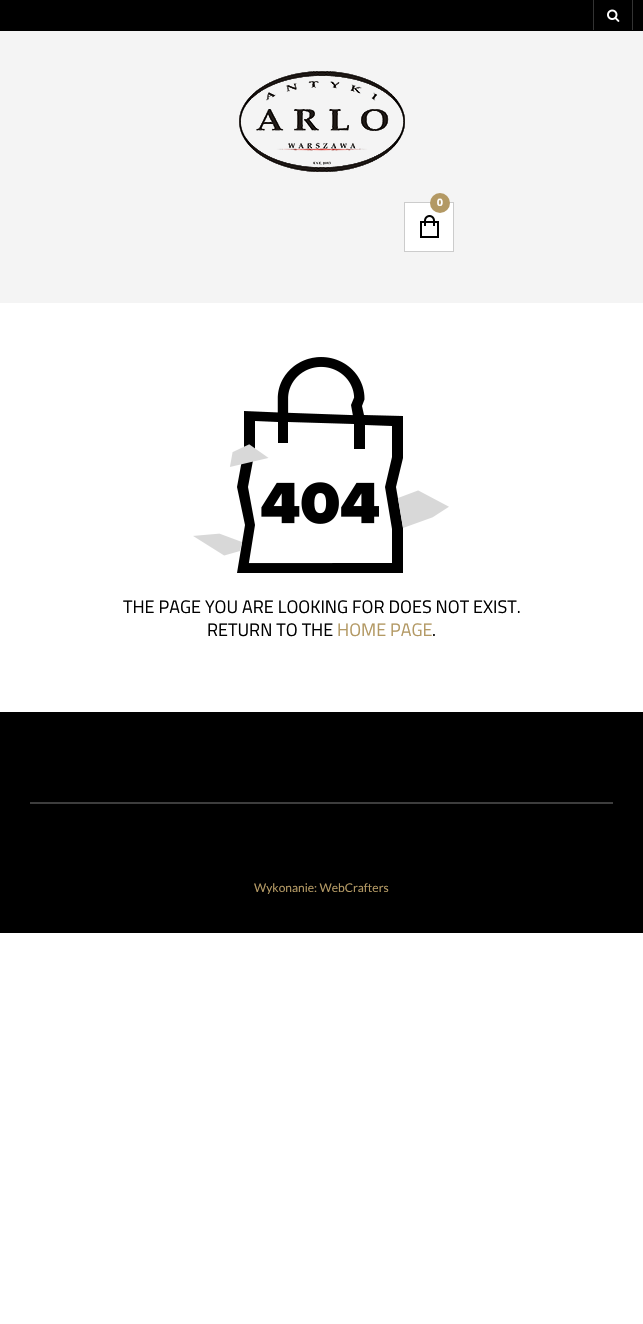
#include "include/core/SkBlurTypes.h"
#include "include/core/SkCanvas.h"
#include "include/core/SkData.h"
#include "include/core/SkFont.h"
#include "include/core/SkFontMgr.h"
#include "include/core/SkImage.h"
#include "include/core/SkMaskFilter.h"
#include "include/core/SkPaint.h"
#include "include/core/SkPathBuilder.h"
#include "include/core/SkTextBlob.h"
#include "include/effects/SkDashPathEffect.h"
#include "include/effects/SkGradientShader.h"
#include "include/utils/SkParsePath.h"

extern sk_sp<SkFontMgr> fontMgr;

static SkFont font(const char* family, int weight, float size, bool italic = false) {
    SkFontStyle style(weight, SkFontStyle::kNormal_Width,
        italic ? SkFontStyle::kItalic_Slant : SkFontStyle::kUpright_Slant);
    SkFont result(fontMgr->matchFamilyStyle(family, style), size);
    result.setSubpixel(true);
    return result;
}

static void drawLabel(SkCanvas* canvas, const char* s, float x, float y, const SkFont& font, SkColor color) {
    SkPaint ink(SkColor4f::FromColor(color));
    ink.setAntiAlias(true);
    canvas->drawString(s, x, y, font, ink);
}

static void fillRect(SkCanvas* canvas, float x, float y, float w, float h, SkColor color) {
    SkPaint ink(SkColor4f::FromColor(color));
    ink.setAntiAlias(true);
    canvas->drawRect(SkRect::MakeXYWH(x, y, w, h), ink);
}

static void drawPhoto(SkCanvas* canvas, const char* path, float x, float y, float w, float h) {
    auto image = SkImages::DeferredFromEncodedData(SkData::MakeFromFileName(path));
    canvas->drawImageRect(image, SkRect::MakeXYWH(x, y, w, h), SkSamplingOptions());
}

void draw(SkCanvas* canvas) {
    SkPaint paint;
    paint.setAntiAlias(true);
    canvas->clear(0xFFFFFFFF);
    fillRect(canvas, 0, 0, 643, 31, 0xFF000000);
    fillRect(canvas, 632, 0, 1, 30, 0xFF333333);
    fillRect(canvas, 593, 0, 1, 30, 0xFF333333);
    drawPhoto(canvas, "assets/img1.png", 607, 9, 13, 13);
    fillRect(canvas, 0, 31, 643, 272, 0xFFF4F4F4);
    drawPhoto(canvas, "assets/img2.png", 239, 71, 166, 101);
    fillRect(canvas, 405, 203, 48, 48, 0xFFFFFFFF);
    drawPhoto(canvas, "assets/img3.png", 420, 215, 19, 23);
    paint.setStroke(true);
    paint.setStrokeWidth(1);
    paint.setColor(0xFFCCCCCC);
    canvas->drawRect(SkRect::MakeXYWH(404.5f, 202.5f, 49, 49), paint);
    paint.setStroke(false);
    paint.setColor(0xFFB39964);
    canvas->drawCircle(440, 203, 10, paint);
    SkFont font1 = font("Lato", 900, 10);
    drawLabel(canvas, "0", 437, 206, font1, 0xFFFFFFFF);
    drawPhoto(canvas, "assets/img4.png", 193, 357, 256, 216);
    SkFont font2 = font("Titillium Web", 400, 18);
    drawLabel(canvas, "THE PAGE YOU ARE LOOKING FOR DOES NOT EXIST.", 123, 613, font2, 0xFF000000);
    drawLabel(canvas, "RETURN TO THE", 207, 636, font2, 0xFF000000);
    drawLabel(canvas, "HOME PAGE", 337, 636, font2, 0xFFB39964);
    drawLabel(canvas, ".", 432, 636, font2, 0xFF000000);
    fillRect(canvas, 0, 712, 643, 221, 0xFF000000);
    fillRect(canvas, 30, 802, 583, 2, 0xFF3D3D3D);
    SkFont font3 = font("Lato", 400, 12);
    drawLabel(canvas, "Wykonanie: WebCrafters", 254, 892, font3, 0xFFB39964);
}
